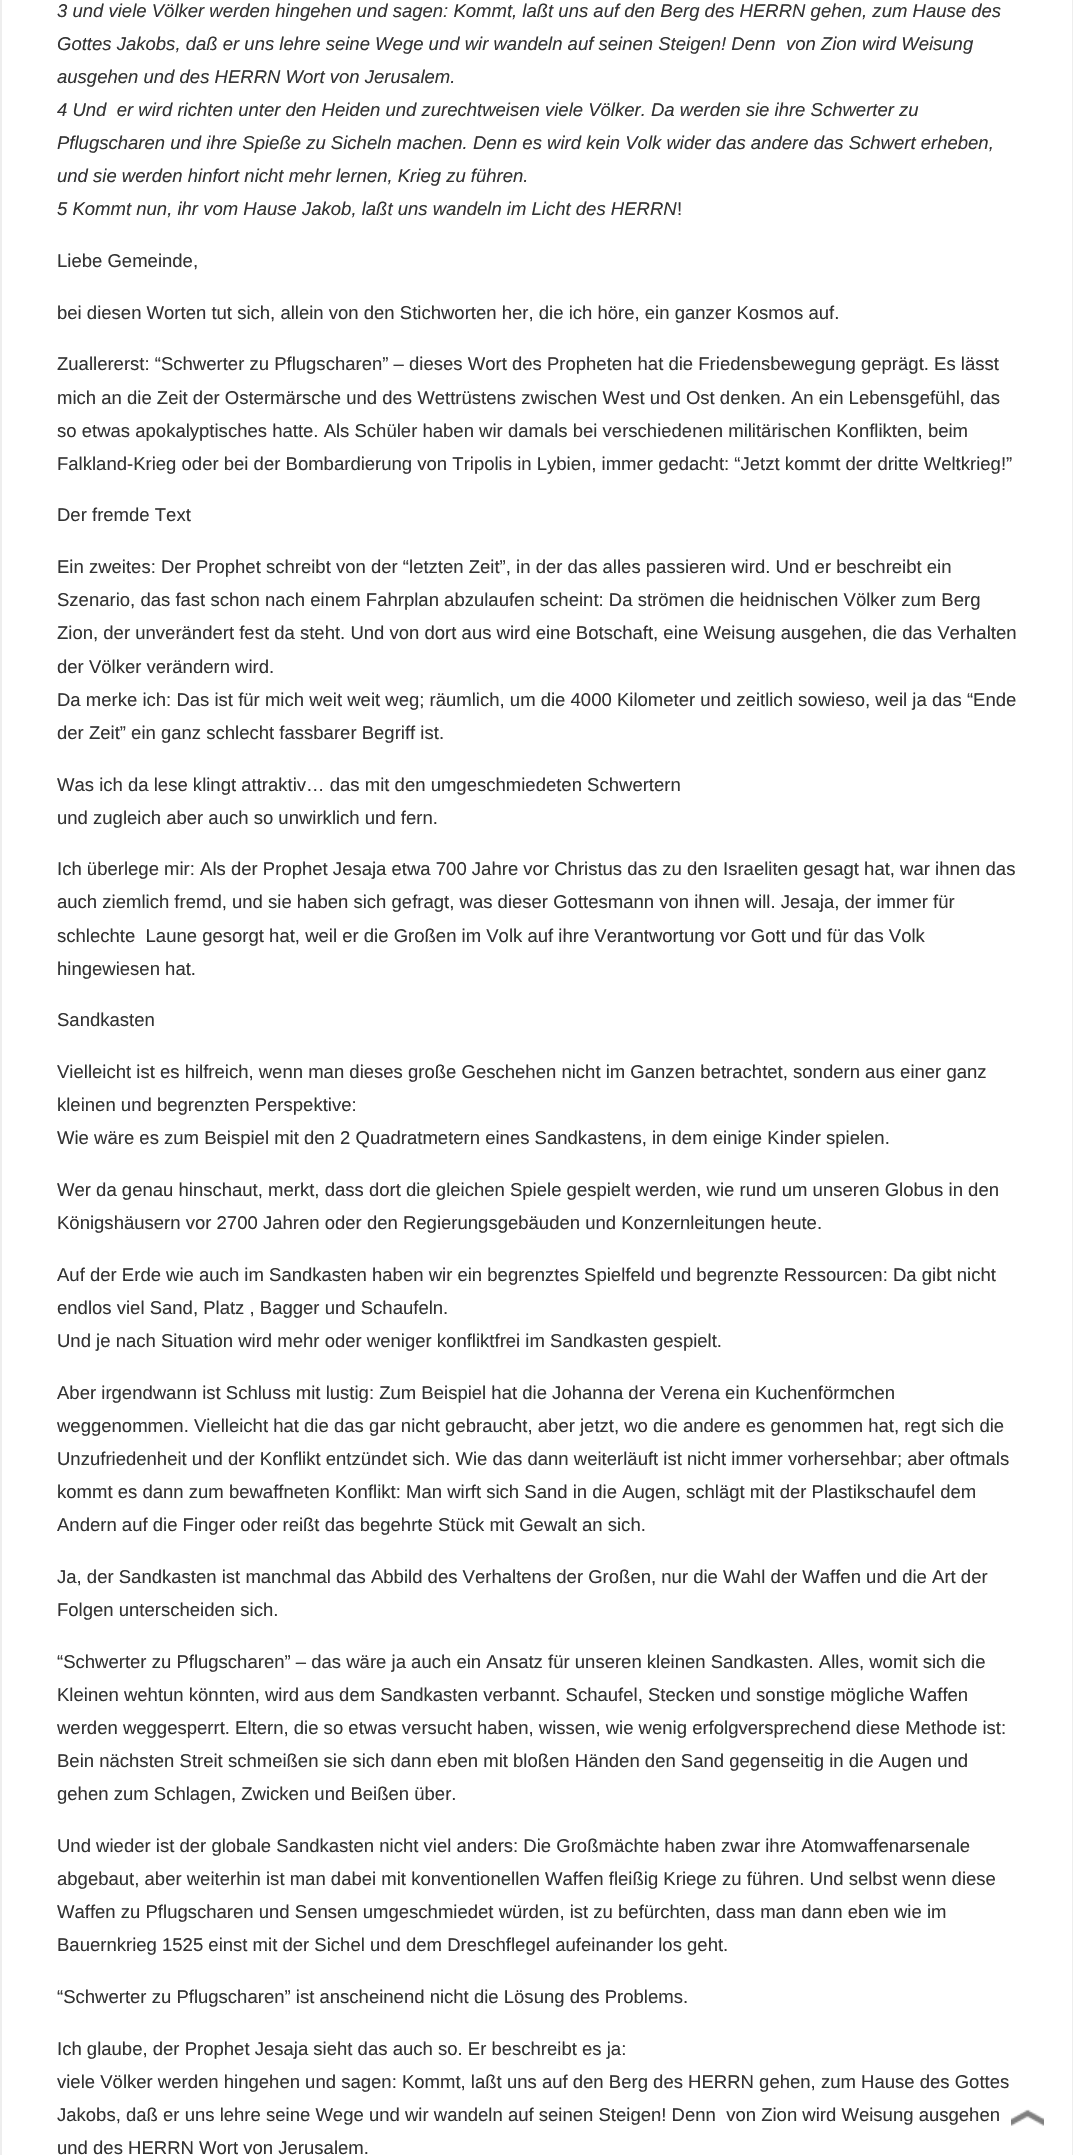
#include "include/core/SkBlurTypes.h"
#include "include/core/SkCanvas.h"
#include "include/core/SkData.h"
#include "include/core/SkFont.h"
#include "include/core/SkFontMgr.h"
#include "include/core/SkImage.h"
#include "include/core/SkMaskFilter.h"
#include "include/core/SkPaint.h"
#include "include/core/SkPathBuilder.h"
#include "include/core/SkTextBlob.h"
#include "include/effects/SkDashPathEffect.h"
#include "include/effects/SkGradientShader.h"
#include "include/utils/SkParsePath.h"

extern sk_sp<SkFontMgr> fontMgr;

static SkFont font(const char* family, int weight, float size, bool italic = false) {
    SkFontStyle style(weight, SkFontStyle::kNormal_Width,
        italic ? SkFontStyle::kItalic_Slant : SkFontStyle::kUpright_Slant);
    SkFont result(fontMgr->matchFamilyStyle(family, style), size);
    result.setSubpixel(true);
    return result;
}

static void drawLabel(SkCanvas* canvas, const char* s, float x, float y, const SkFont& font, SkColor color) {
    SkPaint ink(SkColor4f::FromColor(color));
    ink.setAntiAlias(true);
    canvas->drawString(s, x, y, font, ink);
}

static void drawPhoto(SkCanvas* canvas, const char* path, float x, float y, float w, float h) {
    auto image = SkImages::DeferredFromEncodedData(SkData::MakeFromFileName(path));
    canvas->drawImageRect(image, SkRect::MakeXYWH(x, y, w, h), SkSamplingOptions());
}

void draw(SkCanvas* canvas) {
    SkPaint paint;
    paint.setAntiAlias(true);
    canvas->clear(0xFFFFFFFF);
    paint.setStroke(true);
    paint.setStrokeWidth(2);
    paint.setColor(0xFFEEEEEE);
    canvas->drawRect(SkRect::MakeXYWH(1, -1, 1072, 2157), paint);
    SkFont font1 = font("Liberation Sans", 400, 18.52f, true);
    drawLabel(canvas, "3 und viele Völker werden hingehen und sagen: Kommt, laßt uns auf den Berg des HERRN gehen, zum Hause des", 57, 17, font1, 0xFF333333);
    drawLabel(canvas, "Gottes Jakobs, daß er uns lehre seine Wege und wir wandeln auf seinen Steigen! Denn  von Zion wird Weisung", 57, 50, font1, 0xFF333333);
    drawLabel(canvas, "ausgehen und des HERRN Wort von Jerusalem.", 57, 83, font1, 0xFF333333);
    drawLabel(canvas, "4 Und  er wird richten unter den Heiden und zurechtweisen viele Völker. Da werden sie ihre Schwerter zu", 57, 116, font1, 0xFF333333);
    drawLabel(canvas, "Pflugscharen und ihre Spieße zu Sicheln machen. Denn es wird kein Volk wider das andere das Schwert erheben,", 57, 149, font1, 0xFF333333);
    drawLabel(canvas, "und sie werden hinfort nicht mehr lernen, Krieg zu führen.", 57, 182, font1, 0xFF333333);
    drawLabel(canvas, "5 Kommt nun, ihr vom Hause Jakob, laßt uns wandeln im Licht des HERRN", 57, 215, font1, 0xFF333333);
    SkFont font2 = font("Liberation Sans", 400, 18.52f);
    drawLabel(canvas, "!", 677, 215, font2, 0xFF333333);
    drawLabel(canvas, "Liebe Gemeinde,", 57, 267, font2, 0xFF333333);
    drawLabel(canvas, "bei diesen Worten tut sich, allein von den Stichworten her, die ich höre, ein ganzer Kosmos auf.", 57, 319, font2, 0xFF333333);
    drawLabel(canvas, "Zuallererst: “Schwerter zu Pflugscharen” – dieses Wort des Propheten hat die Friedensbewegung geprägt. Es lässt", 57, 370, font2, 0xFF333333);
    drawLabel(canvas, "mich an die Zeit der Ostermärsche und des Wettrüstens zwischen West und Ost denken. An ein Lebensgefühl, das", 57, 404, font2, 0xFF333333);
    drawLabel(canvas, "so etwas apokalyptisches hatte. Als Schüler haben wir damals bei verschiedenen militärischen Konflikten, beim", 57, 437, font2, 0xFF333333);
    drawLabel(canvas, "Falkland-Krieg oder bei der Bombardierung von Tripolis in Lybien, immer gedacht: “Jetzt kommt der dritte Weltkrieg!”", 57, 470, font2, 0xFF333333);
    drawLabel(canvas, "Der fremde Text", 57, 521, font2, 0xFF333333);
    drawLabel(canvas, "Ein zweites: Der Prophet schreibt von der “letzten Zeit”, in der das alles passieren wird. Und er beschreibt ein", 57, 573, font2, 0xFF333333);
    drawLabel(canvas, "Szenario, das fast schon nach einem Fahrplan abzulaufen scheint: Da strömen die heidnischen Völker zum Berg", 57, 606, font2, 0xFF333333);
    drawLabel(canvas, "Zion, der unverändert fest da steht. Und von dort aus wird eine Botschaft, eine Weisung ausgehen, die das Verhalten", 57, 639, font2, 0xFF333333);
    drawLabel(canvas, "der Völker verändern wird.", 57, 673, font2, 0xFF333333);
    drawLabel(canvas, "Da merke ich: Das ist für mich weit weit weg; räumlich, um die 4000 Kilometer und zeitlich sowieso, weil ja das “Ende", 57, 706, font2, 0xFF333333);
    drawLabel(canvas, "der Zeit” ein ganz schlecht fassbarer Begriff ist.", 57, 739, font2, 0xFF333333);
    drawLabel(canvas, "Was ich da lese klingt attraktiv… das mit den umgeschmiedeten Schwertern", 57, 791, font2, 0xFF333333);
    drawLabel(canvas, "und zugleich aber auch so unwirklich und fern.", 57, 824, font2, 0xFF333333);
    drawLabel(canvas, "Ich überlege mir: Als der Prophet Jesaja etwa 700 Jahre vor Christus das zu den Israeliten gesagt hat, war ihnen das", 57, 875, font2, 0xFF333333);
    drawLabel(canvas, "auch ziemlich fremd, und sie haben sich gefragt, was dieser Gottesmann von ihnen will. Jesaja, der immer für", 57, 908, font2, 0xFF333333);
    drawLabel(canvas, "schlechte  Laune gesorgt hat, weil er die Großen im Volk auf ihre Verantwortung vor Gott und für das Volk", 57, 942, font2, 0xFF333333);
    drawLabel(canvas, "hingewiesen hat.", 57, 975, font2, 0xFF333333);
    drawLabel(canvas, "Sandkasten", 57, 1026, font2, 0xFF333333);
    drawLabel(canvas, "Vielleicht ist es hilfreich, wenn man dieses große Geschehen nicht im Ganzen betrachtet, sondern aus einer ganz", 57, 1078, font2, 0xFF333333);
    drawLabel(canvas, "kleinen und begrenzten Perspektive:", 57, 1111, font2, 0xFF333333);
    drawLabel(canvas, "Wie wäre es zum Beispiel mit den 2 Quadratmetern eines Sandkastens, in dem einige Kinder spielen.", 57, 1144, font2, 0xFF333333);
    drawLabel(canvas, "Wer da genau hinschaut, merkt, dass dort die gleichen Spiele gespielt werden, wie rund um unseren Globus in den", 57, 1196, font2, 0xFF333333);
    drawLabel(canvas, "Königshäusern vor 2700 Jahren oder den Regierungsgebäuden und Konzernleitungen heute.", 57, 1229, font2, 0xFF333333);
    drawLabel(canvas, "Auf der Erde wie auch im Sandkasten haben wir ein begrenztes Spielfeld und begrenzte Ressourcen: Da gibt nicht", 57, 1281, font2, 0xFF333333);
    drawLabel(canvas, "endlos viel Sand, Platz , Bagger und Schaufeln.", 57, 1314, font2, 0xFF333333);
    drawLabel(canvas, "Und je nach Situation wird mehr oder weniger konfliktfrei im Sandkasten gespielt.", 57, 1347, font2, 0xFF333333);
    drawLabel(canvas, "Aber irgendwann ist Schluss mit lustig: Zum Beispiel hat die Johanna der Verena ein Kuchenförmchen", 57, 1399, font2, 0xFF333333);
    drawLabel(canvas, "weggenommen. Vielleicht hat die das gar nicht gebraucht, aber jetzt, wo die andere es genommen hat, regt sich die", 57, 1432, font2, 0xFF333333);
    drawLabel(canvas, "Unzufriedenheit und der Konflikt entzündet sich. Wie das dann weiterläuft ist nicht immer vorhersehbar; aber oftmals", 57, 1465, font2, 0xFF333333);
    drawLabel(canvas, "kommt es dann zum bewaffneten Konflikt: Man wirft sich Sand in die Augen, schlägt mit der Plastikschaufel dem", 57, 1498, font2, 0xFF333333);
    drawLabel(canvas, "Andern auf die Finger oder reißt das begehrte Stück mit Gewalt an sich.", 57, 1531, font2, 0xFF333333);
    drawLabel(canvas, "Ja, der Sandkasten ist manchmal das Abbild des Verhaltens der Großen, nur die Wahl der Waffen und die Art der", 57, 1583, font2, 0xFF333333);
    drawLabel(canvas, "Folgen unterscheiden sich.", 57, 1616, font2, 0xFF333333);
    drawLabel(canvas, "“Schwerter zu Pflugscharen” – das wäre ja auch ein Ansatz für unseren kleinen Sandkasten. Alles, womit sich die", 57, 1668, font2, 0xFF333333);
    drawLabel(canvas, "Kleinen wehtun könnten, wird aus dem Sandkasten verbannt. Schaufel, Stecken und sonstige mögliche Waffen", 57, 1701, font2, 0xFF333333);
    drawLabel(canvas, "werden weggesperrt. Eltern, die so etwas versucht haben, wissen, wie wenig erfolgversprechend diese Methode ist:", 57, 1734, font2, 0xFF333333);
    drawLabel(canvas, "Bein nächsten Streit schmeißen sie sich dann eben mit bloßen Händen den Sand gegenseitig in die Augen und", 57, 1767, font2, 0xFF333333);
    drawLabel(canvas, "gehen zum Schlagen, Zwicken und Beißen über.", 57, 1800, font2, 0xFF333333);
    drawLabel(canvas, "Und wieder ist der globale Sandkasten nicht viel anders: Die Großmächte haben zwar ihre Atomwaffenarsenale", 57, 1852, font2, 0xFF333333);
    drawLabel(canvas, "abgebaut, aber weiterhin ist man dabei mit konventionellen Waffen fleißig Kriege zu führen. Und selbst wenn diese", 57, 1885, font2, 0xFF333333);
    drawLabel(canvas, "Waffen zu Pflugscharen und Sensen umgeschmiedet würden, ist zu befürchten, dass man dann eben wie im", 57, 1918, font2, 0xFF333333);
    drawLabel(canvas, "Bauernkrieg 1525 einst mit der Sichel und dem Dreschflegel aufeinander los geht.", 57, 1951, font2, 0xFF333333);
    drawLabel(canvas, "“Schwerter zu Pflugscharen” ist anscheinend nicht die Lösung des Problems.", 57, 2003, font2, 0xFF333333);
    drawLabel(canvas, "Ich glaube, der Prophet Jesaja sieht das auch so. Er beschreibt es ja:", 57, 2055, font2, 0xFF333333);
    drawLabel(canvas, "viele Völker werden hingehen und sagen: Kommt, laßt uns auf den Berg des HERRN gehen, zum Hause des Gottes", 57, 2088, font2, 0xFF333333);
    drawLabel(canvas, "Jakobs, daß er uns lehre seine Wege und wir wandeln auf seinen Steigen! Denn  von Zion wird Weisung ausgehen", 57, 2121, font2, 0xFF333333);
    drawLabel(canvas, "und des HERRN Wort von Jerusalem.", 57, 2154, font2, 0xFF333333);
    drawPhoto(canvas, "assets/img1.png", 1011, 2109, 33, 17);
}
